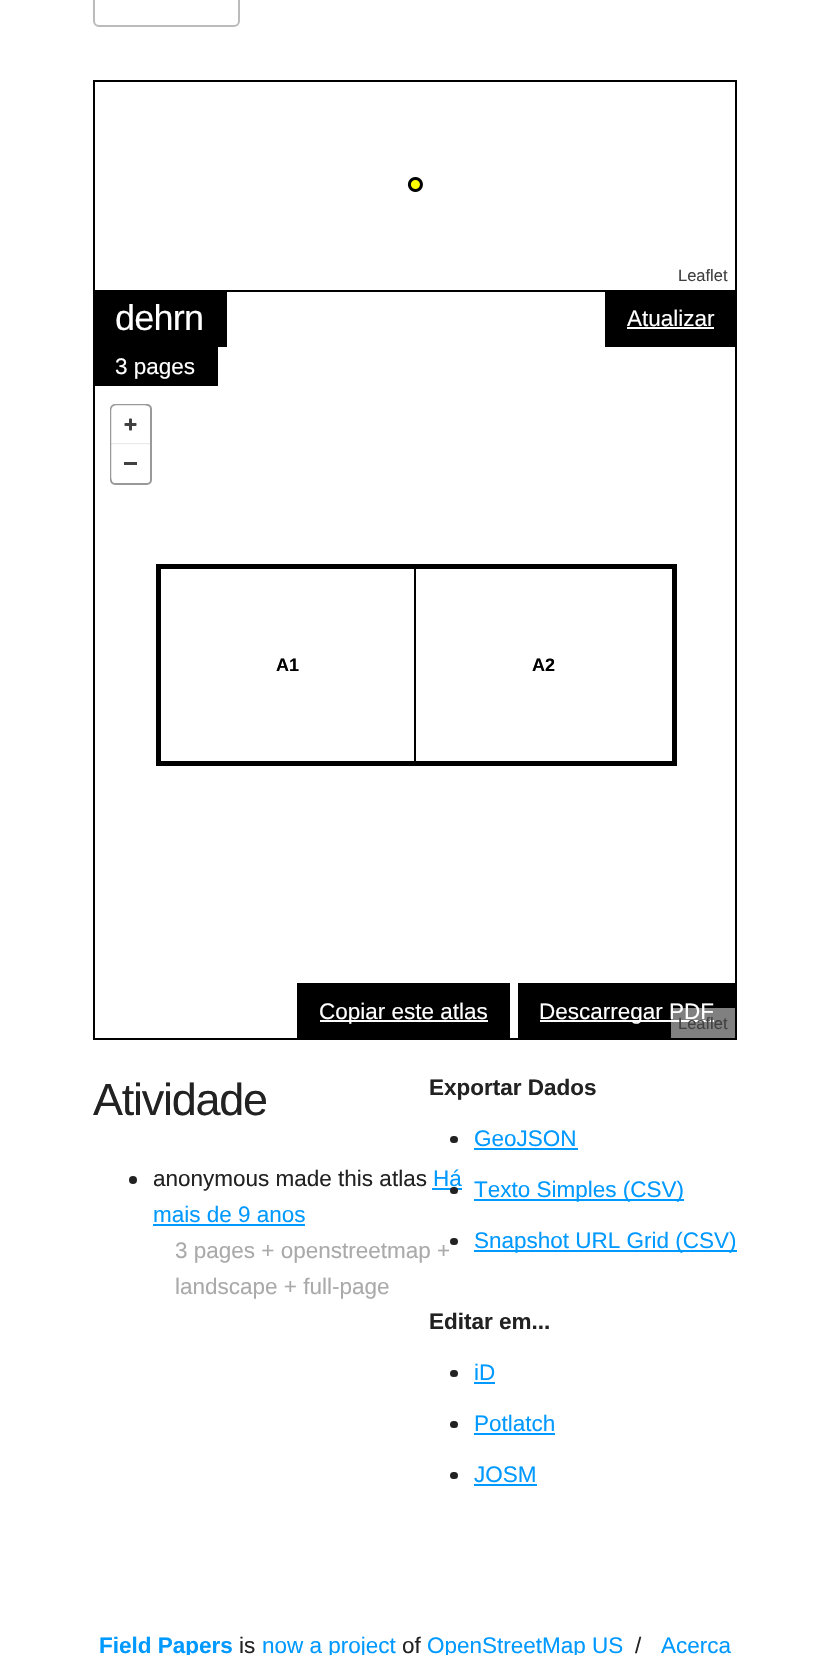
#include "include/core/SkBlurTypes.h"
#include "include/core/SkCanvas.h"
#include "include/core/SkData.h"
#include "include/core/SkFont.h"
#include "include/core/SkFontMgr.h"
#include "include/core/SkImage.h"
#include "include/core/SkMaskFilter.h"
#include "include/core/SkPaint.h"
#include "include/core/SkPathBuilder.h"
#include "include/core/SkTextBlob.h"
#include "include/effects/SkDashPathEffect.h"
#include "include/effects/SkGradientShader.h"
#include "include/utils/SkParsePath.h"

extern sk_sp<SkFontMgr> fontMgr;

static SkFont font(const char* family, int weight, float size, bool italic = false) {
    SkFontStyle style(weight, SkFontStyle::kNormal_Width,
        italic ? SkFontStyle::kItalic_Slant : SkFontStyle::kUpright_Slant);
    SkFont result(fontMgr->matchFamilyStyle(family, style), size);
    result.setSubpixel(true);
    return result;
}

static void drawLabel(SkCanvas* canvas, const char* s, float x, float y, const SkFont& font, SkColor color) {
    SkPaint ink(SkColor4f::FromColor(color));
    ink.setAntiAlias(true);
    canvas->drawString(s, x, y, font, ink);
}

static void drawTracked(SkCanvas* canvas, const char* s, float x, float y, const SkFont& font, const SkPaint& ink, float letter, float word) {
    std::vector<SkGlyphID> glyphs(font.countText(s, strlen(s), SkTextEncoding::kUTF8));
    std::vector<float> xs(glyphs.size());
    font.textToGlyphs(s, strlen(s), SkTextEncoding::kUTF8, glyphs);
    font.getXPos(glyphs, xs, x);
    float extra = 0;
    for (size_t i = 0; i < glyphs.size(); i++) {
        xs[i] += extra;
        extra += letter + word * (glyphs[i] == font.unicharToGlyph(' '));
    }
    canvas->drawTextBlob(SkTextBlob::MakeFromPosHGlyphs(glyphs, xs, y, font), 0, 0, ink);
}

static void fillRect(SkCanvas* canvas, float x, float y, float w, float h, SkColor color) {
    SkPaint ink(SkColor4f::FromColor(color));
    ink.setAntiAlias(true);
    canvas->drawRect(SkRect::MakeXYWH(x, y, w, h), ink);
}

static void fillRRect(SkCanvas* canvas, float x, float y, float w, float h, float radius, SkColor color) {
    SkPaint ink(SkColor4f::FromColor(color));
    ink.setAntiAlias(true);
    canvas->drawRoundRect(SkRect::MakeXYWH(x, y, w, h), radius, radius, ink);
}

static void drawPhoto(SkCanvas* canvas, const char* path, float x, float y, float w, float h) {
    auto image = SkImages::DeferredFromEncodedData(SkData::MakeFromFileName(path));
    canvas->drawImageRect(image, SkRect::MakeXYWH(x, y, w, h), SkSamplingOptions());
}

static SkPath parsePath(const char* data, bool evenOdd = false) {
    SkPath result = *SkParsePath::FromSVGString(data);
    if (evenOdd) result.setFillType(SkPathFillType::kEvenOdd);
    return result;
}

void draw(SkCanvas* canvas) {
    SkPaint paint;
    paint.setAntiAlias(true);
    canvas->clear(0xFFFFFFFF);
    paint.setStroke(true);
    paint.setStrokeWidth(2);
    paint.setColor(0xFFBBBBBB);
    canvas->drawRoundRect(SkRect::MakeXYWH(94, -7, 145, 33), 5, 5, paint);
    fillRect(canvas, 93, 80, 644, 2, 0xFF000000);
    fillRect(canvas, 735, 80, 2, 210, 0xFF000000);
    fillRect(canvas, 93, 80, 2, 210, 0xFF000000);
    drawPhoto(canvas, "assets/img1.png", 407, 177, 16, 15);
    SkFont font1 = font("Liberation Sans", 400, 16.5f);
    drawLabel(canvas, "Leaflet", 678, 281, font1, 0xFF404040);
    paint.setColor(0xFF000000);
    canvas->drawRect(SkRect::MakeXYWH(94, 291, 642, 748), paint);
    fillRect(canvas, 95, 292, 132, 55, 0xFF000000);
    SkFont font2 = font("Liberation Sans", 400, 36);
    paint.setStroke(false);
    paint.setColor(0xFFFFFFFF);
    drawTracked(canvas, "dehrn", 115, 330, font2, paint, -0.75f, 0);
    fillRect(canvas, 95, 347, 123, 39, 0xFF000000);
    SkFont font3 = font("Liberation Sans", 400, 22.5f);
    drawLabel(canvas, "3 pages", 115, 374, font3, 0xFFFFFFFF);
    fillRect(canvas, 605, 292, 130, 55, 0xFF000000);
    drawLabel(canvas, "Atualizar", 627, 326, font3, 0xFFFFFFFF);
    fillRect(canvas, 627, 327, 87, 2, 0xFFFFFFFF);
    paint.setStroke(true);
    paint.setColor(0xFF999999);
    canvas->drawRoundRect(SkRect::MakeXYWH(111, 405, 40, 79), 4, 4, paint);
    paint.setStroke(false);
    paint.setColor(0xBFFFFFFF);
    canvas->drawPath(parsePath("M117 405H144C147.5 405 150 407.5 150 411V444H111V411C111 407.5 113.5 405 117 405Z"), paint);
    drawPhoto(canvas, "assets/img2.png", 124, 418, 13, 13);
    fillRect(canvas, 111, 443, 39, 2, 0x14000000);
    canvas->drawPath(parsePath("M111 444H150V477C150 480.5 147.5 483 144 483H117C113.5 483 111 480.5 111 477Z"), paint);
    fillRect(canvas, 124, 462, 13, 3, 0xFF404040);
    fillRect(canvas, 156, 564, 521, 5, 0xFF000000);
    fillRect(canvas, 414, 564, 2, 201, 0xFF000000);
    fillRect(canvas, 156, 761, 260, 5, 0xFF000000);
    fillRect(canvas, 156, 564, 5, 201, 0xFF000000);
    SkFont font4 = font("Liberation Sans", 700, 18);
    drawLabel(canvas, "A1", 276, 671, font4, 0xFF000000);
    fillRect(canvas, 672, 564, 5, 201, 0xFF000000);
    fillRect(canvas, 416, 761, 261, 5, 0xFF000000);
    drawLabel(canvas, "A2", 532, 671, font4, 0xFF000000);
    fillRect(canvas, 518, 983, 217, 55, 0xFF000000);
    fillRect(canvas, 540, 1020, 174, 2, 0xFFFFFFFF);
    drawLabel(canvas, "Descarregar PDF", 539, 1019, font3, 0xFFFFFFFF);
    fillRect(canvas, 671, 1008, 64, 30, 0x80FFFFFF);
    drawLabel(canvas, "Leaflet", 678, 1029, font1, 0xFF404040);
    fillRect(canvas, 297, 983, 213, 55, 0xFF000000);
    fillRect(canvas, 320, 1020, 168, 2, 0xFFFFFFFF);
    drawLabel(canvas, "Copiar este atlas", 319, 1019, font3, 0xFFFFFFFF);
    SkFont font5 = font("Liberation Sans", 400, 45);
    paint.setColor(0xFF222222);
    drawTracked(canvas, "Atividade", 93, 1115, font5, paint, -1.25f, 0);
    canvas->drawCircle(133, 1180, 4, paint);
    drawLabel(canvas, "anonymous made this atlas", 153, 1186, font3, 0xFF222222);
    drawLabel(canvas, "Há", 433, 1186, font3, 0xFF0099FF);
    fillRect(canvas, 432, 1188, 30, 2, 0xFF0099FF);
    drawLabel(canvas, "mais de 9 anos", 153, 1222, font3, 0xFF0099FF);
    fillRect(canvas, 153, 1224, 152, 2, 0xFF0099FF);
    drawLabel(canvas, "3 pages + openstreetmap +", 175, 1258, font3, 0xFFAAAAAA);
    drawLabel(canvas, "landscape + full-page", 175, 1294, font3, 0xFFAAAAAA);
    SkFont font6 = font("Liberation Sans", 700, 22.5f);
    drawLabel(canvas, "Exportar Dados", 429, 1095, font6, 0xFF222222);
    fillRRect(canvas, 450, 1136, 8, 7, 3.5f, 0xFF222222);
    drawLabel(canvas, "GeoJSON", 474, 1146, font3, 0xFF0099FF);
    fillRect(canvas, 474, 1148, 104, 2, 0xFF0099FF);
    fillRRect(canvas, 450, 1187, 8, 7, 3.5f, 0xFF222222);
    fillRect(canvas, 474, 1199, 210, 2, 0xFF0099FF);
    drawLabel(canvas, "Texto Simples (CSV)", 474, 1197, font3, 0xFF0099FF);
    fillRRect(canvas, 450, 1238, 8, 7, 3.5f, 0xFF222222);
    fillRect(canvas, 474, 1250, 263, 2, 0xFF0099FF);
    drawLabel(canvas, "Snapshot URL Grid (CSV)", 474, 1248, font3, 0xFF0099FF);
    drawLabel(canvas, "Editar em...", 429, 1329, font6, 0xFF222222);
    fillRRect(canvas, 450, 1370, 8, 7, 3.5f, 0xFF222222);
    drawLabel(canvas, "iD", 474, 1380, font3, 0xFF0099FF);
    fillRect(canvas, 474, 1382, 21, 2, 0xFF0099FF);
    fillRRect(canvas, 450, 1421, 8, 7, 3.5f, 0xFF222222);
    drawLabel(canvas, "Potlatch", 474, 1431, font3, 0xFF0099FF);
    fillRect(canvas, 474, 1433, 81, 2, 0xFF0099FF);
    fillRRect(canvas, 450, 1472, 8, 7, 3.5f, 0xFF222222);
    drawLabel(canvas, "JOSM", 474, 1482, font3, 0xFF0099FF);
    fillRect(canvas, 474, 1484, 63, 2, 0xFF0099FF);
    drawLabel(canvas, "Field Papers", 99, 1653, font6, 0xFF0099FF);
    drawLabel(canvas, "is", 239, 1653, font3, 0xFF222222);
    drawLabel(canvas, "now a project", 262, 1653, font3, 0xFF0099FF);
    drawLabel(canvas, "of", 402, 1653, font3, 0xFF222222);
    drawLabel(canvas, "OpenStreetMap US", 427, 1653, font3, 0xFF0099FF);
    drawLabel(canvas, "/", 635, 1653, font3, 0xFF222222);
    drawLabel(canvas, "Acerca", 661, 1653, font3, 0xFF0099FF);
}
